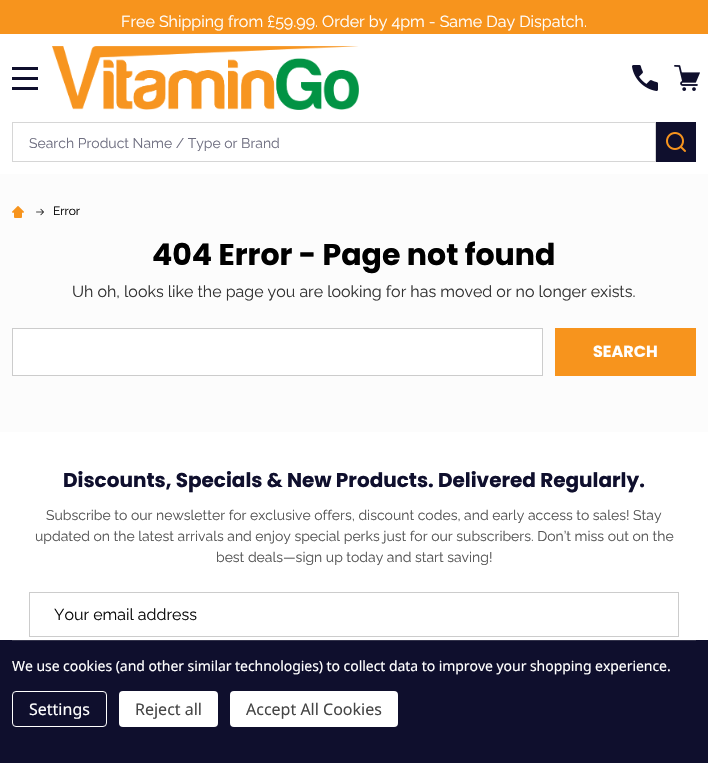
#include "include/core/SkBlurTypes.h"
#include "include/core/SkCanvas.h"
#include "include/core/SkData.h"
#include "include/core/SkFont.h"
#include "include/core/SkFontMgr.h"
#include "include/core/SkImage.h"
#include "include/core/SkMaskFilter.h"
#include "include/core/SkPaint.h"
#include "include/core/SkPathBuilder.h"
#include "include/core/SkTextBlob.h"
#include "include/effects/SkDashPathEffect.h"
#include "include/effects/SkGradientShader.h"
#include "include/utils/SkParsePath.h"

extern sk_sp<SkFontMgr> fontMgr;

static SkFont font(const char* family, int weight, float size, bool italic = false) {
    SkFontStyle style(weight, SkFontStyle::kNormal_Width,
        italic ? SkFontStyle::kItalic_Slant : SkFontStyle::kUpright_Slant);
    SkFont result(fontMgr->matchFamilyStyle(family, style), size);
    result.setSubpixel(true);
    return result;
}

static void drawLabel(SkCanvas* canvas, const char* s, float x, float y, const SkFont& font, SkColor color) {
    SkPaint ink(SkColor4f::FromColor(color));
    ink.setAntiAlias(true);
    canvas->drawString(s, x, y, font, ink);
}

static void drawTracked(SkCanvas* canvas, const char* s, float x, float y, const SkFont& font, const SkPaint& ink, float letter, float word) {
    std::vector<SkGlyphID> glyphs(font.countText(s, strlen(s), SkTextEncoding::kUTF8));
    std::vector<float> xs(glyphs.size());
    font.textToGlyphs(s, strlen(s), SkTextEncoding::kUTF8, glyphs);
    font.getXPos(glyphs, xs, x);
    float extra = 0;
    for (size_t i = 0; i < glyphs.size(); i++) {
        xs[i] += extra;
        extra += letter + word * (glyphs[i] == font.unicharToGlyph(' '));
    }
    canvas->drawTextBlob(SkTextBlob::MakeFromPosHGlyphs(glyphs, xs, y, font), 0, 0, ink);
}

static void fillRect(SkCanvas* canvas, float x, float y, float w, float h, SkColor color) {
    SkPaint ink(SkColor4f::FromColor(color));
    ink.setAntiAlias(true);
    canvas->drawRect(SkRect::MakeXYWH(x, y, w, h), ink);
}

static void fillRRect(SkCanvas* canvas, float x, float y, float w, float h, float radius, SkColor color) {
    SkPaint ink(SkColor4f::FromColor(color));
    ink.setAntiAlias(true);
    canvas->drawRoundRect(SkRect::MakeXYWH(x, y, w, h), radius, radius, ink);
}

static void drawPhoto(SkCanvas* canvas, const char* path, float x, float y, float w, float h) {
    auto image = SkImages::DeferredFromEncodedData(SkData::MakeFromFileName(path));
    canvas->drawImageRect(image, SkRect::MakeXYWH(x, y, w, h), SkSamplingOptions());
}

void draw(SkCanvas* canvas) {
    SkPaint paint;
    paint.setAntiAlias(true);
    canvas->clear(0xFFFCFCFC);
    fillRect(canvas, 0, 34, 708, 140, 0xFFFFFFFF);
    fillRect(canvas, 0, 0, 708, 34, 0xFFF7941D);
    SkFont font1 = font("Raleway", 100, 16);
    drawLabel(canvas, "Free Shipping from £59.99. Order by 4pm - Same Day Dispatch.", 121, 27, font1, 0xFFFFFFFF);
    fillRect(canvas, 12, 77, 26, 3, 0xFF0F0F2D);
    fillRect(canvas, 12, 67, 26, 3, 0xFF0F0F2D);
    fillRect(canvas, 12, 87, 26, 3, 0xFF0F0F2D);
    drawPhoto(canvas, "assets/img1.png", 52, 46, 307, 64);
    drawPhoto(canvas, "assets/img2.png", 632, 65, 26, 26);
    drawPhoto(canvas, "assets/img3.png", 674, 65, 26, 26);
    paint.setStroke(true);
    paint.setStrokeWidth(1);
    paint.setColor(0xFFD6D6D6);
    canvas->drawRect(SkRect::MakeXYWH(12.5f, 122.5f, 643, 39), paint);
    SkFont font2 = font("Raleway", 100, 14);
    drawLabel(canvas, "Search Product Name / Type or Brand", 29, 148, font2, 0xFF6F6F81);
    fillRect(canvas, 656, 122, 40, 40, 0xFF0F0F2D);
    drawPhoto(canvas, "assets/img4.png", 666, 132, 20, 20);
    drawPhoto(canvas, "assets/img5.png", 12, 206, 12, 12);
    drawPhoto(canvas, "assets/img6.png", 36, 208, 8, 8);
    SkFont font3 = font("Raleway", 100, 12);
    drawLabel(canvas, "Error", 53, 215, font3, 0xFF000000);
    SkFont font4 = font("Poppins", 700, 30);
    drawLabel(canvas, "404 Error - Page not found", 152, 265, font4, 0xFF000000);
    drawLabel(canvas, "Uh oh, looks like the page you are looking for has moved or no longer exists.", 72, 297, font1, 0xFF333333);
    paint.setStroke(false);
    paint.setColor(0xFFFFFFFF);
    canvas->drawRect(SkRect::MakeXYWH(12.5f, 328.5f, 530, 47), paint);
    paint.setStroke(true);
    paint.setColor(0xFFCCCCCC);
    canvas->drawRect(SkRect::MakeXYWH(12.5f, 328.5f, 530, 47), paint);
    fillRect(canvas, 555, 328, 141, 48, 0xFFF7941D);
    SkFont font5 = font("Poppins", 700, 16);
    drawLabel(canvas, "SEARCH", 593, 357, font5, 0xFFFFFFFF);
    fillRect(canvas, 0, 432, 708, 208, 0xFFFFFFFF);
    SkFont font6 = font("Poppins", 700, 20);
    drawLabel(canvas, "Discounts, Specials & New Products. Delivered Regularly.", 63, 487, font6, 0xFF0F0F2D);
    drawLabel(canvas, "Subscribe to our newsletter for exclusive offers, discount codes, and early access to sales! Stay", 46, 520, font2, 0xFF555555);
    drawLabel(canvas, "updated on the latest arrivals and enjoy special perks just for our subscribers. Don’t miss out on the", 35, 541, font2, 0xFF555555);
    drawLabel(canvas, "best deals—sign up today and start saving!", 216, 562, font2, 0xFF555555);
    canvas->drawRect(SkRect::MakeXYWH(29.5f, 592.5f, 649, 44), paint);
    drawLabel(canvas, "Your email address", 54, 620, font1, 0xFF0A0A0A);
    fillRect(canvas, 0, 640, 708, 123, 0xFF0F0F2D);
    fillRect(canvas, 12, 640, 684, 1, 0xFF33334B);
    SkFont font7 = font("Noto Sans", 400, 14);
    paint.setStroke(false);
    paint.setColor(0xFFFFFFFF);
    drawTracked(canvas, "We use cookies (and other similar technologies) to collect data to improve your shopping experience.", 12, 671, font7, paint, -0.05f, 0);
    paint.setStroke(true);
    canvas->drawRoundRect(SkRect::MakeXYWH(12.5f, 691.5f, 94, 35), 3.5f, 3.5f, paint);
    SkFont font8 = font("Noto Sans", 400, 16);
    drawLabel(canvas, "Settings", 29, 715, font8, 0xFFFFFFFF);
    fillRRect(canvas, 119, 691, 99, 36, 4, 0xFFFFFFFF);
    drawLabel(canvas, "Reject all", 135, 715, font8, 0xFF454545);
    fillRRect(canvas, 230, 691, 168, 36, 4, 0xFFFFFFFF);
    drawLabel(canvas, "Accept All Cookies", 246, 715, font8, 0xFF454545);
}
